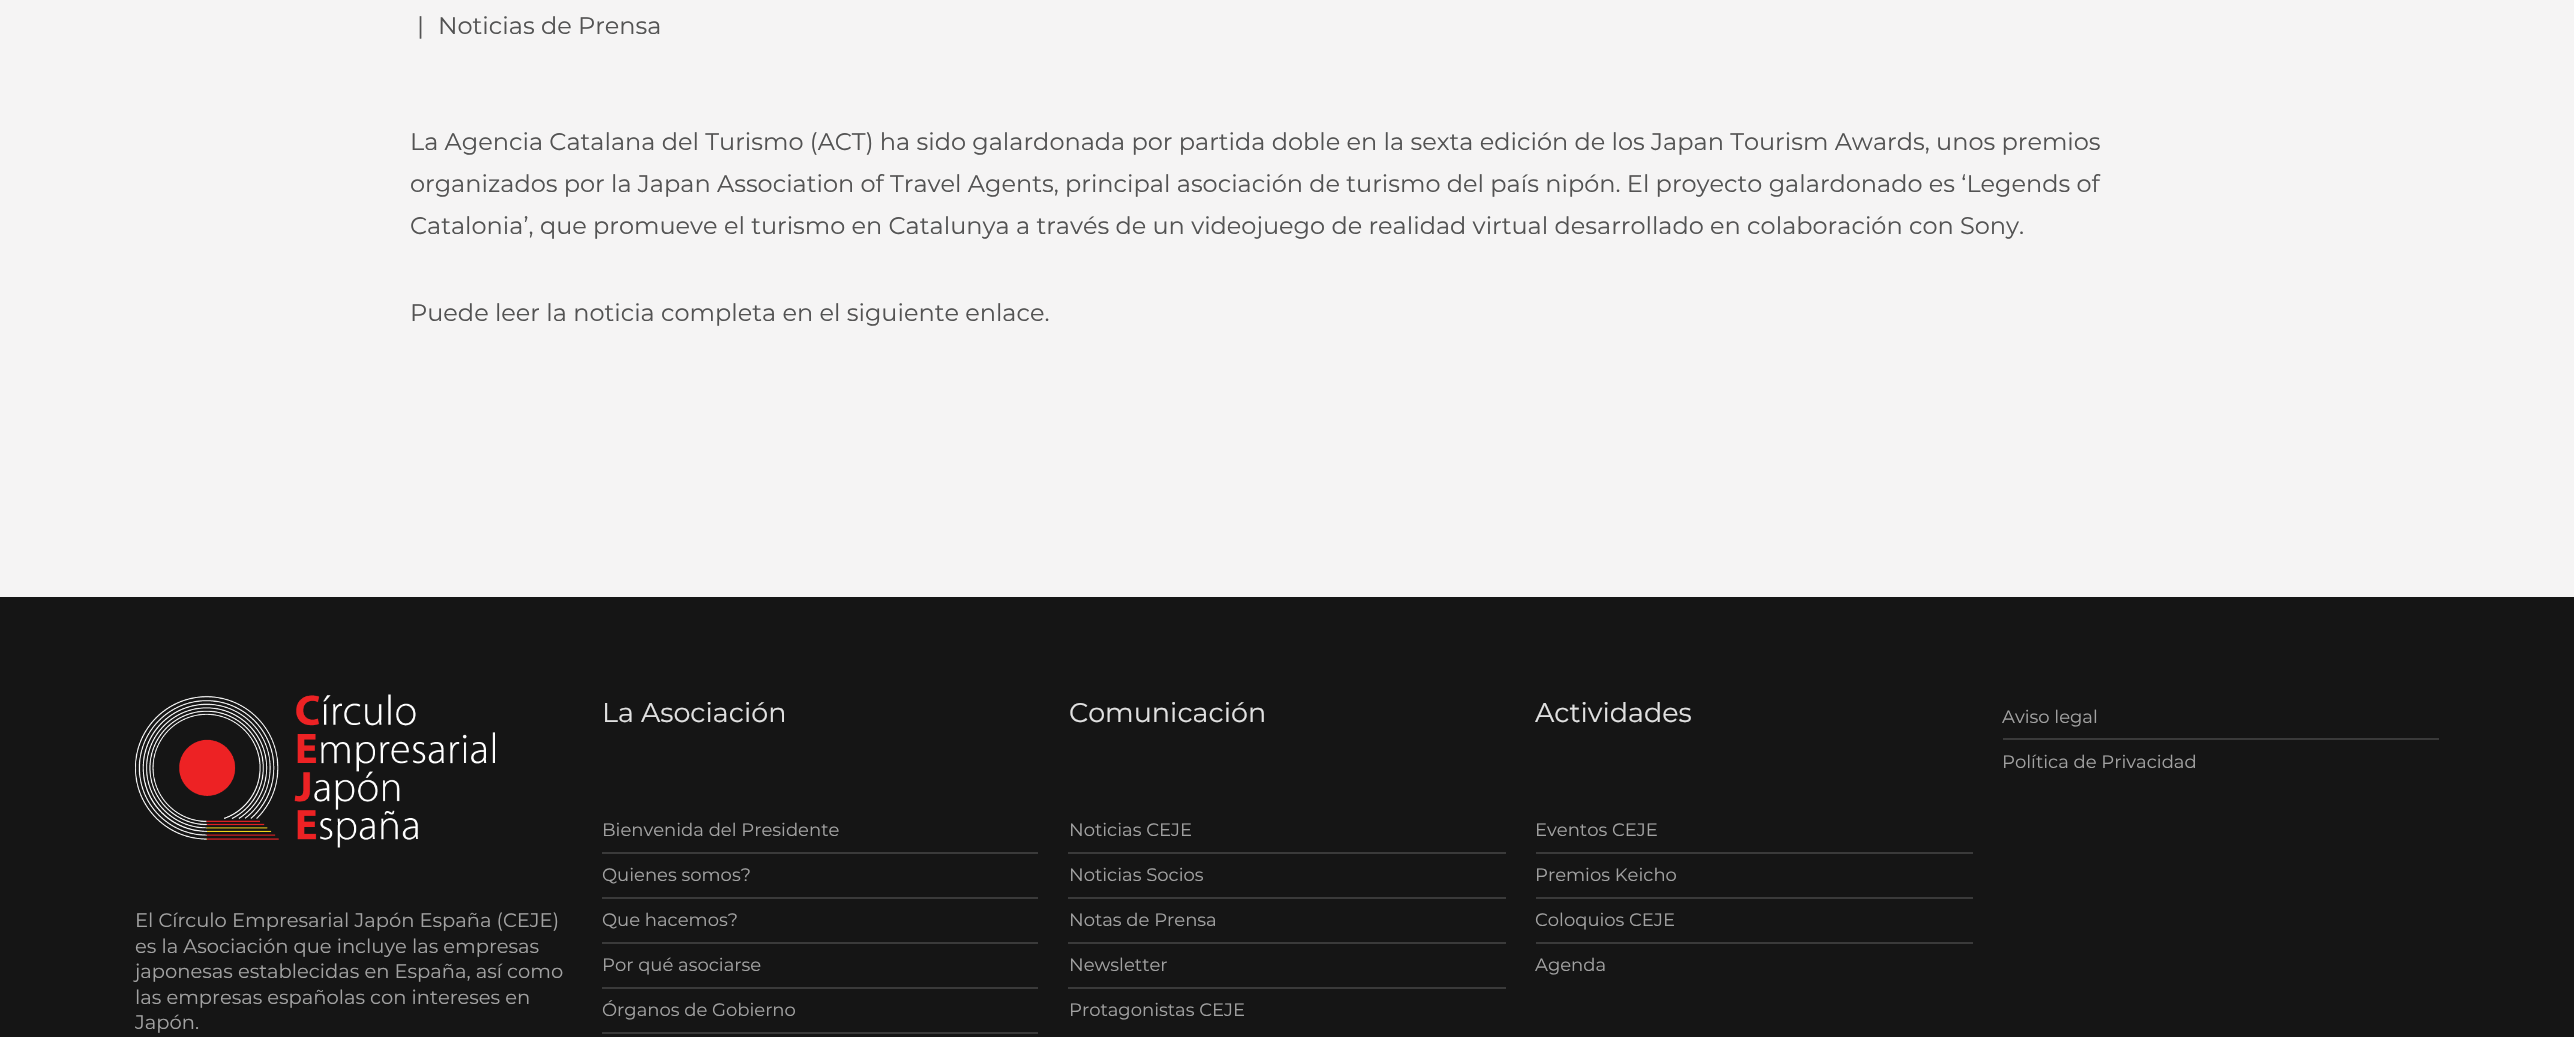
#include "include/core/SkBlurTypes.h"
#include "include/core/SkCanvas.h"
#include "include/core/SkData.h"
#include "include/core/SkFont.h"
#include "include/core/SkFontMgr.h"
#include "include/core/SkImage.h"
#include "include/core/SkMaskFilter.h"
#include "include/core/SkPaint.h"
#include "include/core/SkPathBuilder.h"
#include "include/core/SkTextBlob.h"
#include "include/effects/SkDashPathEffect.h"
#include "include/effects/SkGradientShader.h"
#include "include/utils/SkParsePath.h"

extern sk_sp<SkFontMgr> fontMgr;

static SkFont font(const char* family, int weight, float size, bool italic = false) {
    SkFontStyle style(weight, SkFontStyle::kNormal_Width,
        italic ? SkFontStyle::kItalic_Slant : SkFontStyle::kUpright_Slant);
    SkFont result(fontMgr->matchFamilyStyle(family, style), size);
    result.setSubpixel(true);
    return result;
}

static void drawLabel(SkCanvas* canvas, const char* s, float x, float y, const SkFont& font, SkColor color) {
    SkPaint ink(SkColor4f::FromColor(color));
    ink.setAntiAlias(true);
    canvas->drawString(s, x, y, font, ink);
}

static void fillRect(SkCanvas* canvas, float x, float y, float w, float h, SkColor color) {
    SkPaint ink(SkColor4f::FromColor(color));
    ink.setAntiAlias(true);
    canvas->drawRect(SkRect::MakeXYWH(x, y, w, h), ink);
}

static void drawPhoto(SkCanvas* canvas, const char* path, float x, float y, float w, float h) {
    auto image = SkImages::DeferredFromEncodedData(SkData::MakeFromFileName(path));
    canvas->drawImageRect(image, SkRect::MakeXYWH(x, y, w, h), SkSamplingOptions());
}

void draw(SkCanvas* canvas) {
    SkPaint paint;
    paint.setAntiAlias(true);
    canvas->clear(0xFFF5F4F4);
    SkFont font1 = font("Montserrat", 400, 24);
    drawLabel(canvas, "|", 417, 34, font1, 0xFF535353);
    drawLabel(canvas, "Noticias de Prensa", 438, 34, font1, 0xFF535353);
    drawLabel(canvas, "La Agencia Catalana del Turismo (ACT) ha sido galardonada por partida doble en la sexta edición de los Japan Tourism Awards, unos premios", 410, 150, font1, 0xFF535353);
    drawLabel(canvas, "organizados por la Japan Association of Travel Agents, principal asociación de turismo del país nipón. El proyecto galardonado es ‘Legends of", 410, 192, font1, 0xFF535353);
    drawLabel(canvas, "Catalonia’, que promueve el turismo en Catalunya a través de un videojuego de realidad virtual desarrollado en colaboración con Sony.", 410, 234, font1, 0xFF535353);
    drawLabel(canvas, "Puede leer la noticia completa en el siguiente enlace.", 410, 321, font1, 0xFF535353);
    fillRect(canvas, 0, 597, 2574, 440, 0xFF151515);
    SkFont font2 = font("Montserrat", 400, 27);
    drawLabel(canvas, "La Asociación", 602, 722, font2, 0xFFE1E1E1);
    SkFont font3 = font("Montserrat", 400, 18);
    drawLabel(canvas, "Bienvenida del Presidente", 602, 836, font3, 0xFFA2A2A2);
    fillRect(canvas, 602, 852, 436, 2, 0xFF3A3A3A);
    drawLabel(canvas, "Quienes somos?", 602, 881, font3, 0xFFA2A2A2);
    fillRect(canvas, 602, 897, 436, 2, 0xFF3A3A3A);
    drawLabel(canvas, "Que hacemos?", 602, 926, font3, 0xFFA2A2A2);
    fillRect(canvas, 602, 942, 436, 2, 0xFF3A3A3A);
    drawLabel(canvas, "Por qué asociarse", 602, 971, font3, 0xFFA2A2A2);
    fillRect(canvas, 602, 987, 436, 2, 0xFF3A3A3A);
    drawLabel(canvas, "Órganos de Gobierno", 602, 1016, font3, 0xFFA2A2A2);
    fillRect(canvas, 602, 1032, 436, 2, 0xFF3A3A3A);
    drawLabel(canvas, "Comunicación", 1069, 722, font2, 0xFFE1E1E1);
    drawLabel(canvas, "Noticias CEJE", 1069, 836, font3, 0xFFA2A2A2);
    fillRect(canvas, 1068, 852, 438, 2, 0xFF3A3A3A);
    drawLabel(canvas, "Noticias Socios", 1069, 881, font3, 0xFFA2A2A2);
    fillRect(canvas, 1068, 897, 438, 2, 0xFF3A3A3A);
    drawLabel(canvas, "Notas de Prensa", 1069, 926, font3, 0xFFA2A2A2);
    fillRect(canvas, 1068, 942, 438, 2, 0xFF3A3A3A);
    drawLabel(canvas, "Newsletter", 1069, 971, font3, 0xFFA2A2A2);
    fillRect(canvas, 1068, 987, 438, 2, 0xFF3A3A3A);
    drawLabel(canvas, "Protagonistas CEJE", 1069, 1016, font3, 0xFFA2A2A2);
    drawLabel(canvas, "Actividades", 1535, 722, font2, 0xFFE1E1E1);
    drawLabel(canvas, "Eventos CEJE", 1535, 836, font3, 0xFFA2A2A2);
    fillRect(canvas, 1536, 852, 437, 2, 0xFF3A3A3A);
    drawLabel(canvas, "Premios Keicho", 1535, 881, font3, 0xFFA2A2A2);
    fillRect(canvas, 1536, 897, 437, 2, 0xFF3A3A3A);
    drawLabel(canvas, "Coloquios CEJE", 1535, 926, font3, 0xFFA2A2A2);
    fillRect(canvas, 1536, 942, 437, 2, 0xFF3A3A3A);
    drawLabel(canvas, "Agenda", 1535, 971, font3, 0xFFA2A2A2);
    drawLabel(canvas, "Aviso legal", 2002, 723, font3, 0xFFA2A2A2);
    fillRect(canvas, 2003, 738, 436, 2, 0xFF3A3A3A);
    drawLabel(canvas, "Política de Privacidad", 2002, 768, font3, 0xFFA2A2A2);
    drawPhoto(canvas, "assets/img1.png", 135, 694, 360, 154);
    SkFont font4 = font("Montserrat", 400, 19.5f);
    drawLabel(canvas, "El Círculo Empresarial Japón España (CEJE)", 135, 927, font4, 0xFFA2A2A2);
    drawLabel(canvas, "es la Asociación que incluye las empresas", 135, 953, font4, 0xFFA2A2A2);
    drawLabel(canvas, "japonesas establecidas en España, así como", 135, 978, font4, 0xFFA2A2A2);
    drawLabel(canvas, "las empresas españolas con intereses en", 135, 1004, font4, 0xFFA2A2A2);
    drawLabel(canvas, "Japón.", 135, 1029, font4, 0xFFA2A2A2);
}
